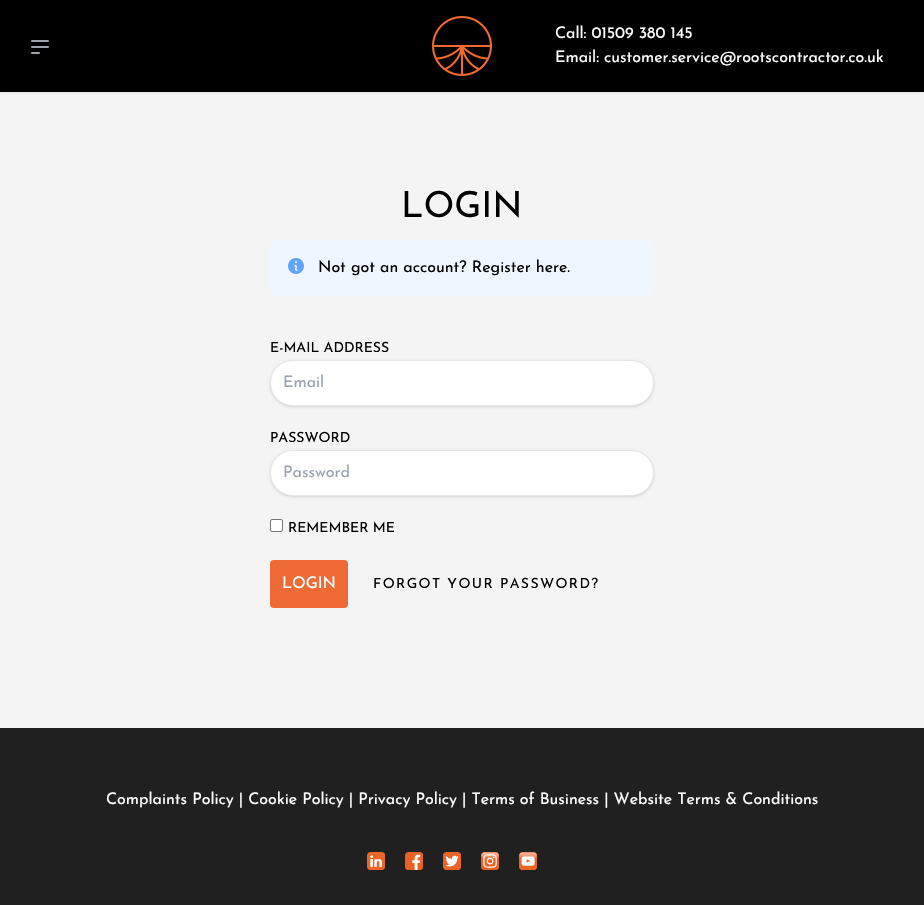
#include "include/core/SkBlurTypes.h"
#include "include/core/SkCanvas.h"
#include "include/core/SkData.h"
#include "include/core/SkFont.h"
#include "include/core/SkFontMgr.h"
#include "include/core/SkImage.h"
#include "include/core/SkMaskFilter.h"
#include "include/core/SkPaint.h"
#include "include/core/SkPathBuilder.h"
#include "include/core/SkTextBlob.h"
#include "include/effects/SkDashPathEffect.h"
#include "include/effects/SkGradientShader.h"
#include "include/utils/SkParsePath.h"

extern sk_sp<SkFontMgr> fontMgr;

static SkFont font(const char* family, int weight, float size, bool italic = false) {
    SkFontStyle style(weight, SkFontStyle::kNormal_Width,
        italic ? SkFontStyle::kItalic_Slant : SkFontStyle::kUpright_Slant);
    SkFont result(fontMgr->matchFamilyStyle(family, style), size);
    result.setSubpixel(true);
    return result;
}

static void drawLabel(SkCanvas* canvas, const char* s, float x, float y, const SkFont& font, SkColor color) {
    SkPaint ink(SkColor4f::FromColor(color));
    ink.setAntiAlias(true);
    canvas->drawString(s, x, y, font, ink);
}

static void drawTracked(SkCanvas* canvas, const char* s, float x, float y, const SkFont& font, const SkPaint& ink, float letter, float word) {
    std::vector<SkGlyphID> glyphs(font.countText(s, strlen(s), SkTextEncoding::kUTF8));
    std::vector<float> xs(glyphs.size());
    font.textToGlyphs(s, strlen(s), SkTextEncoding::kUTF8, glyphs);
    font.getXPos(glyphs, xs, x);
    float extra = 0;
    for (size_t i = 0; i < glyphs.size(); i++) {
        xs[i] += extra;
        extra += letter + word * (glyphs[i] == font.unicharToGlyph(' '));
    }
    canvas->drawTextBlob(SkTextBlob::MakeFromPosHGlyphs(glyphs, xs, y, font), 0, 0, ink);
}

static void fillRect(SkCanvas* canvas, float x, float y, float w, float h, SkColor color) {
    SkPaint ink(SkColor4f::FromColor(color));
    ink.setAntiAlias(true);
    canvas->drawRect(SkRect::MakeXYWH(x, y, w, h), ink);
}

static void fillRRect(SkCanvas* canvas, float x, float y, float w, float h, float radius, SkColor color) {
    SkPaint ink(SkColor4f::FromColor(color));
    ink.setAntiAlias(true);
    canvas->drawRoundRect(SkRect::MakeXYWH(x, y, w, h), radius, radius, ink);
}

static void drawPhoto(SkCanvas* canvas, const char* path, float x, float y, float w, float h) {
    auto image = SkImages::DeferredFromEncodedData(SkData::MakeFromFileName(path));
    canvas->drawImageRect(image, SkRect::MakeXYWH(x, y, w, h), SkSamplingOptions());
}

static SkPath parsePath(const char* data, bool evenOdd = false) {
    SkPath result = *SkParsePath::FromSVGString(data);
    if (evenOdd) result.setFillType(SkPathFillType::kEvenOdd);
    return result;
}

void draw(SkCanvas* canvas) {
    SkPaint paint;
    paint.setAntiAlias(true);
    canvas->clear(0xFFF4F4F4);
    paint.setColor(0x0D000000);
    paint.setMaskFilter(SkMaskFilter::MakeBlur(kNormal_SkBlurStyle, 1));
    canvas->drawRect(SkRect::MakeXYWH(0, 1, 924, 92), paint);
    paint.setMaskFilter(nullptr);
    fillRect(canvas, 0, 0, 924, 92, 0xFF000000);
    paint.setStroke(true);
    paint.setStrokeWidth(2);
    paint.setStrokeCap(SkPaint::kRound_Cap);
    paint.setStrokeJoin(SkPaint::kRound_Join);
    paint.setColor(0xFF9CA3AF);
    canvas->drawPath(parsePath("M32 41H48M32 47H48M32 53H39"), paint);
    drawPhoto(canvas, "assets/img1.png", 432, 16, 60, 60);
    SkFont font1 = font("Josefin Sans", 400, 16);
    drawLabel(canvas, "Call: 01509 380 145", 555, 38, font1, 0xFFFFFFFF);
    drawLabel(canvas, "Email: customer.service@rootscontractor.co.uk", 555, 62, font1, 0xFFFFFFFF);
    SkFont font2 = font("Josefin Sans", 400, 36);
    drawLabel(canvas, "LOGIN", 401, 217, font2, 0xFF000000);
    fillRRect(canvas, 270, 240, 384, 56, 6, 0xFFEFF6FF);
    drawPhoto(canvas, "assets/img2.png", 288, 258, 16, 16);
    drawLabel(canvas, "Not got an account? Register here.", 318, 272, font1, 0xFF000000);
    SkFont font3 = font("Josefin Sans", 400, 14);
    drawLabel(canvas, "E-MAIL ADDRESS", 270, 352, font3, 0xFF000000);
    paint.setStroke(false);
    paint.setColor(0x1A000000);
    paint.setMaskFilter(SkMaskFilter::MakeBlur(kNormal_SkBlurStyle, 1));
    canvas->drawRoundRect(SkRect::MakeXYWH(271, 362, 382, 44), 22, 22, paint);
    paint.setMaskFilter(nullptr);
    paint.setMaskFilter(SkMaskFilter::MakeBlur(kNormal_SkBlurStyle, 1.5f));
    canvas->drawRoundRect(SkRect::MakeXYWH(270, 361, 384, 46), 23, 23, paint);
    paint.setMaskFilter(nullptr);
    paint.setColor(0xFFFFFFFF);
    canvas->drawRoundRect(SkRect::MakeXYWH(270.5f, 360.5f, 383, 45), 22.5f, 22.5f, paint);
    paint.setStroke(true);
    paint.setStrokeWidth(1);
    paint.setStrokeCap(SkPaint::kButt_Cap);
    paint.setStrokeJoin(SkPaint::kMiter_Join);
    paint.setColor(0xFFE5E7EB);
    canvas->drawRoundRect(SkRect::MakeXYWH(270.5f, 360.5f, 383, 45), 22.5f, 22.5f, paint);
    drawLabel(canvas, "Email", 283, 387, font1, 0xFF9CA3AF);
    drawLabel(canvas, "PASSWORD", 270, 442, font3, 0xFF000000);
    paint.setStroke(false);
    paint.setColor(0x1A000000);
    paint.setMaskFilter(SkMaskFilter::MakeBlur(kNormal_SkBlurStyle, 1));
    canvas->drawRoundRect(SkRect::MakeXYWH(271, 452, 382, 44), 22, 22, paint);
    paint.setMaskFilter(nullptr);
    paint.setMaskFilter(SkMaskFilter::MakeBlur(kNormal_SkBlurStyle, 1.5f));
    canvas->drawRoundRect(SkRect::MakeXYWH(270, 451, 384, 46), 23, 23, paint);
    paint.setMaskFilter(nullptr);
    paint.setColor(0xFFFFFFFF);
    canvas->drawRoundRect(SkRect::MakeXYWH(270.5f, 450.5f, 383, 45), 22.5f, 22.5f, paint);
    paint.setStroke(true);
    paint.setColor(0xFFE5E7EB);
    canvas->drawRoundRect(SkRect::MakeXYWH(270.5f, 450.5f, 383, 45), 22.5f, 22.5f, paint);
    drawLabel(canvas, "Password", 283, 477, font1, 0xFF9CA3AF);
    paint.setStroke(false);
    paint.setColor(0xFFFFFFFF);
    canvas->drawRoundRect(SkRect::MakeXYWH(270.5f, 519.5f, 12, 12), 1.5f, 1.5f, paint);
    paint.setStroke(true);
    paint.setColor(0xFF767676);
    canvas->drawRoundRect(SkRect::MakeXYWH(270.5f, 519.5f, 12, 12), 1.5f, 1.5f, paint);
    drawLabel(canvas, "REMEMBER ME", 288, 532, font3, 0xFF000000);
    fillRRect(canvas, 270, 560, 78, 48, 4, 0xFFEE6B37);
    drawLabel(canvas, "LOGIN", 282, 588, font1, 0xFFFFFFFF);
    paint.setStroke(false);
    paint.setColor(0xFF000000);
    drawTracked(canvas, "FORGOT YOUR PASSWORD?", 373, 588, font3, paint, 1.4f, 0);
    fillRect(canvas, 0, 728, 924, 177, 0xFF202020);
    drawLabel(canvas, "Complaints Policy | Cookie Policy | Privacy Policy | Terms of Business | Website Terms & Conditions", 106, 804, font1, 0xFFFFFFFF);
    drawPhoto(canvas, "assets/img3.png", 367, 852, 18, 18);
    drawPhoto(canvas, "assets/img4.png", 405, 852, 18, 18);
    drawPhoto(canvas, "assets/img5.png", 443, 852, 18, 18);
    drawPhoto(canvas, "assets/img6.png", 481, 852, 18, 18);
    drawPhoto(canvas, "assets/img7.png", 519, 852, 18, 18);
}
